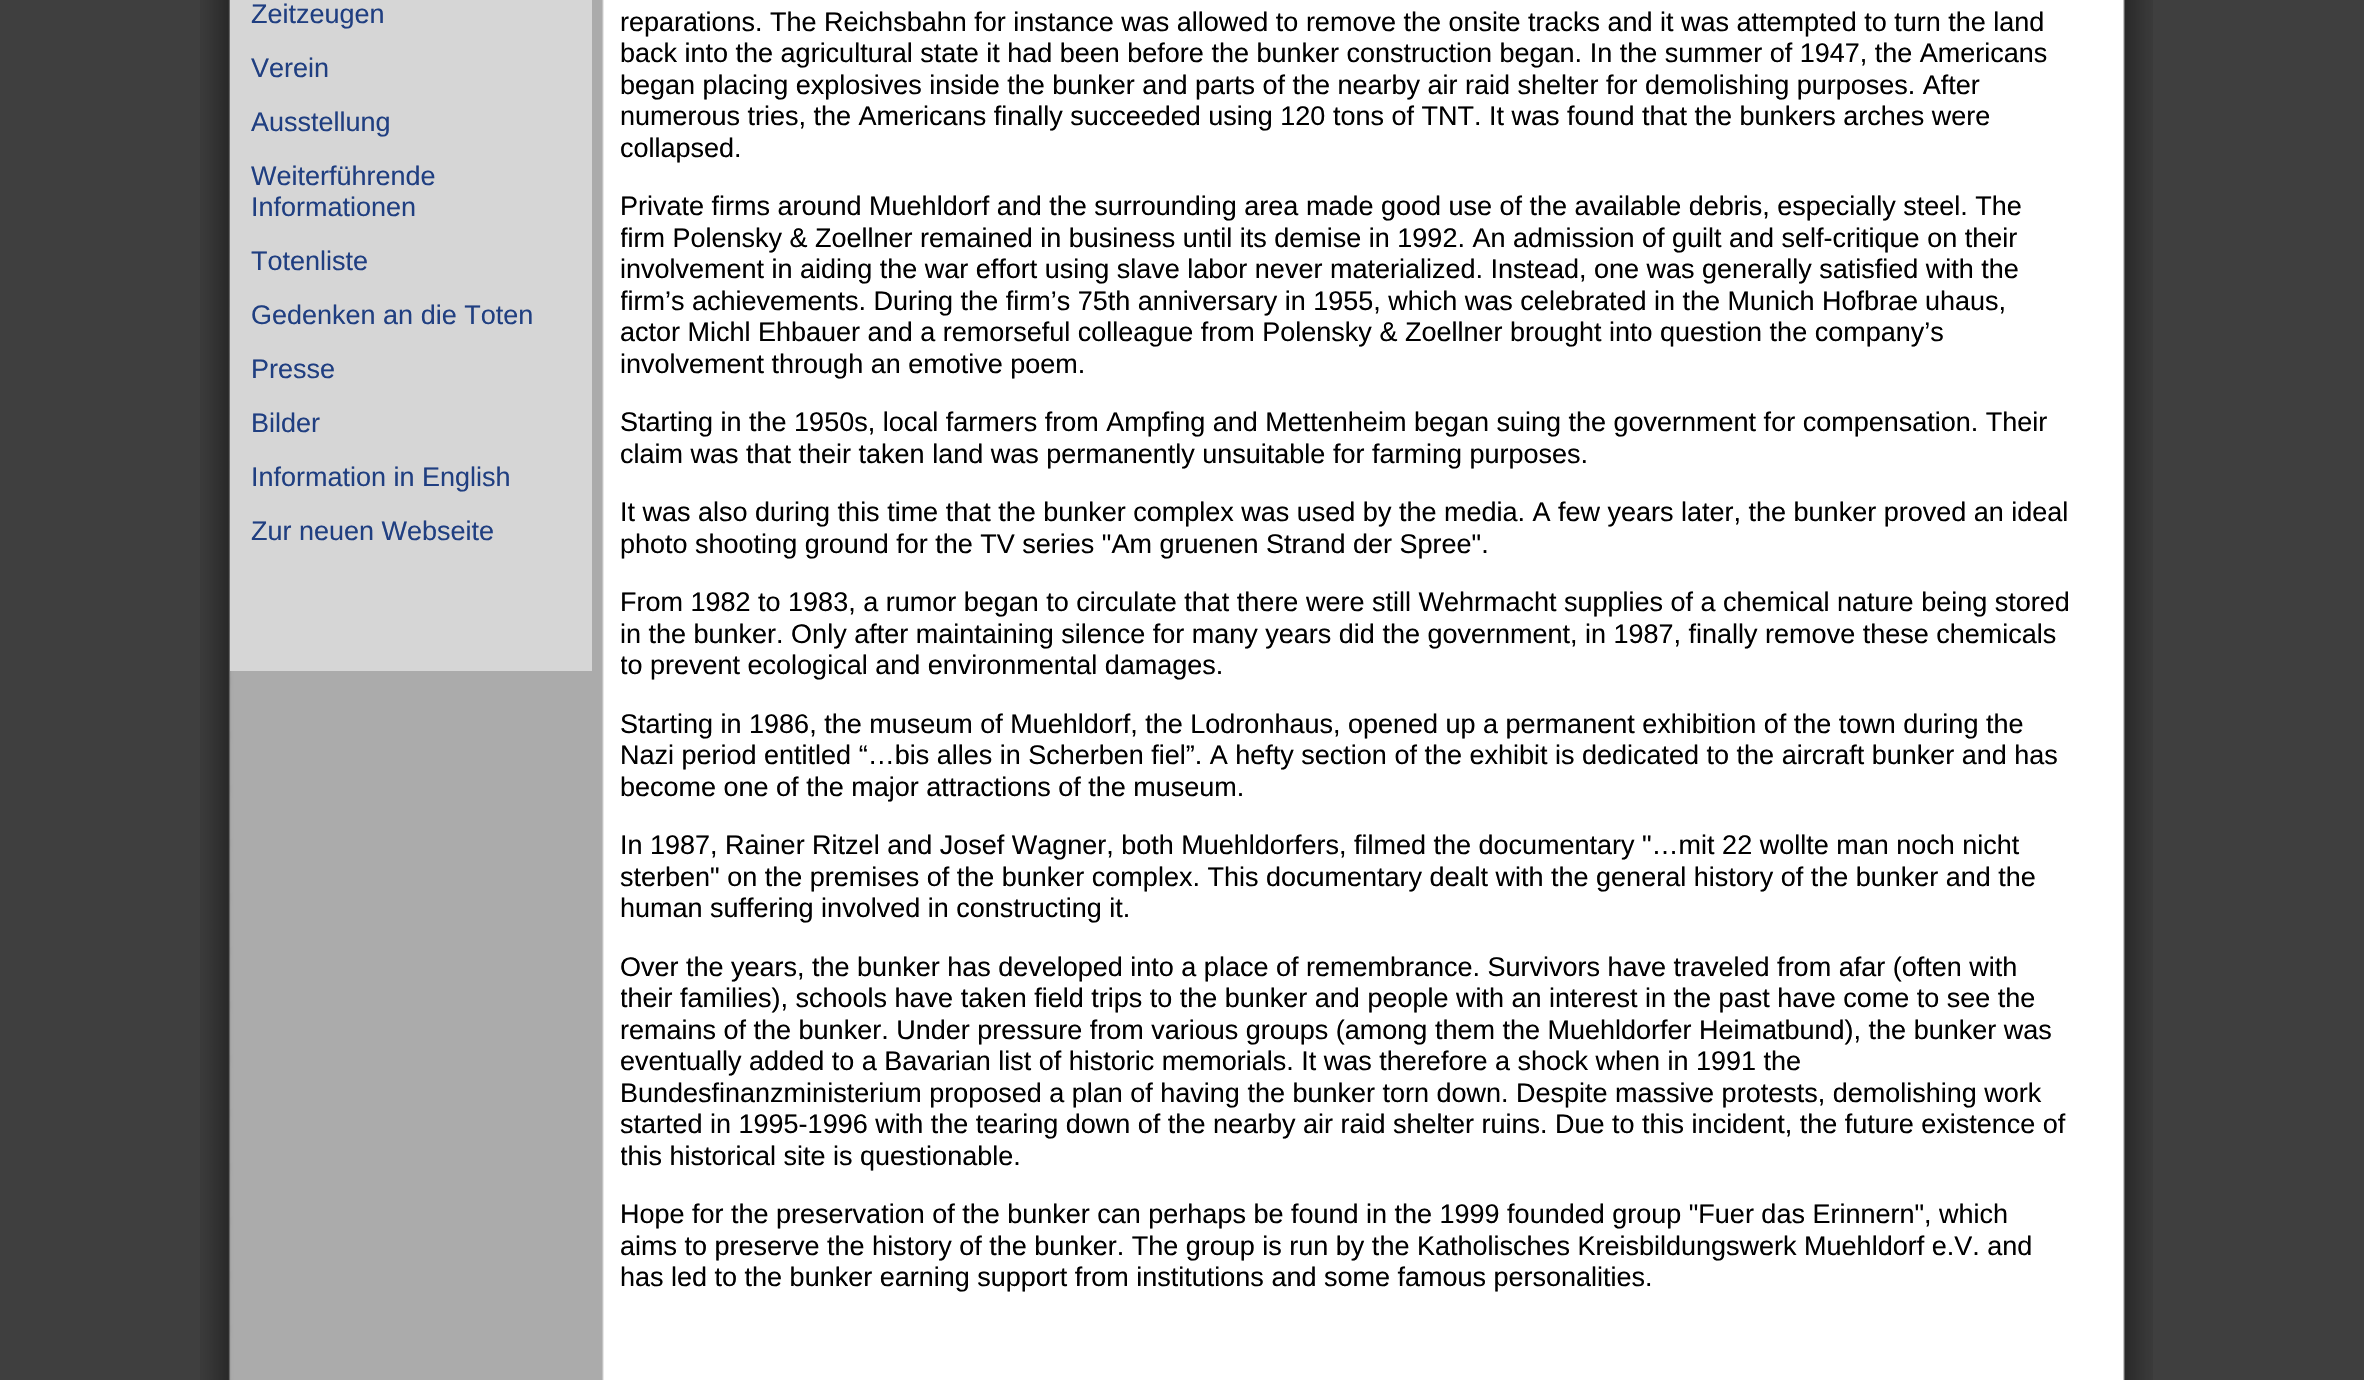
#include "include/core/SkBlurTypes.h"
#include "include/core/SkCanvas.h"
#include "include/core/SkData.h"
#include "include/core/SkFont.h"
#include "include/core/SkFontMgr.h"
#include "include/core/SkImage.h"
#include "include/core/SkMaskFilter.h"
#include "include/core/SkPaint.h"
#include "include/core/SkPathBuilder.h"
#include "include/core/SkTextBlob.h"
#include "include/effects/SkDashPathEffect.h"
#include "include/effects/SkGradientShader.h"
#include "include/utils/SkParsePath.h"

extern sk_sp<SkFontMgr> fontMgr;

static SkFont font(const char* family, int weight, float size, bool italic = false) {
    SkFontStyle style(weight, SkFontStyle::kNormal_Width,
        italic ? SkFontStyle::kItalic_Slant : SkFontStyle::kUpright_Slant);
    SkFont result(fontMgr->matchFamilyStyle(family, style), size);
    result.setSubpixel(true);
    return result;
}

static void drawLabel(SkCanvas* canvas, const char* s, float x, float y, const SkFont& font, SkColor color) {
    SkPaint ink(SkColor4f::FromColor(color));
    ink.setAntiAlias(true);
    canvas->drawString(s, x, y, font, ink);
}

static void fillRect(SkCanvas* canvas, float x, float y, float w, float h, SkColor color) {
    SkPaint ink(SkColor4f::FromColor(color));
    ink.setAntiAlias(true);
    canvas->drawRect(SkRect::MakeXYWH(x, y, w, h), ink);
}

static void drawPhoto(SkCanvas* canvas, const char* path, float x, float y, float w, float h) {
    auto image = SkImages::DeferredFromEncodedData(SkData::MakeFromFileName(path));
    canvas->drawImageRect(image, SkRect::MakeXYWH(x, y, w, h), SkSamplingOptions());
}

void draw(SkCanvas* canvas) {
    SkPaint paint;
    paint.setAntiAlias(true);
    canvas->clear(0xFF3F3F3F);
    drawPhoto(canvas, "assets/img1.png", 200, 0, 1953, 1380);
    fillRect(canvas, 230, 0, 362, 671, 0xFFD6D6D6);
    SkFont font1 = font("Liberation Sans", 400, 27);
    drawLabel(canvas, "Zeitzeugen", 251, 23, font1, 0xFF203F81);
    drawLabel(canvas, "Verein", 251, 77, font1, 0xFF203F81);
    drawLabel(canvas, "Ausstellung", 251, 131, font1, 0xFF203F81);
    drawLabel(canvas, "Weiterführende", 251, 185, font1, 0xFF203F81);
    drawLabel(canvas, "Informationen", 251, 216, font1, 0xFF203F81);
    drawLabel(canvas, "Totenliste", 251, 270, font1, 0xFF203F81);
    drawLabel(canvas, "Gedenken an die Toten", 251, 324, font1, 0xFF203F81);
    drawLabel(canvas, "Presse", 251, 378, font1, 0xFF203F81);
    drawLabel(canvas, "Bilder", 251, 432, font1, 0xFF203F81);
    drawLabel(canvas, "Information in English", 251, 486, font1, 0xFF203F81);
    drawLabel(canvas, "Zur neuen Webseite", 251, 540, font1, 0xFF203F81);
    drawLabel(canvas, "reparations. The Reichsbahn for instance was allowed to remove the onsite tracks and it was attempted to turn the land", 620, 31, font1, 0xFF000000);
    drawLabel(canvas, "back into the agricultural state it had been before the bunker construction began. In the summer of 1947, the Americans", 620, 62, font1, 0xFF000000);
    drawLabel(canvas, "began placing explosives inside the bunker and parts of the nearby air raid shelter for demolishing purposes. After", 620, 94, font1, 0xFF000000);
    drawLabel(canvas, "numerous tries, the Americans finally succeeded using 120 tons of TNT. It was found that the bunkers arches were", 620, 125, font1, 0xFF000000);
    drawLabel(canvas, "collapsed.", 620, 157, font1, 0xFF000000);
    drawLabel(canvas, "Private firms around Muehldorf and the surrounding area made good use of the available debris, especially steel. The", 620, 215, font1, 0xFF000000);
    canvas->save();
    canvas->clipRect(SkRect::MakeXYWH(621, 0, 1451, 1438));
    drawLabel(canvas, "firm Polensky & Zoellner remained in business until its demise in 1992. An admission of guilt and self-critique on their", 620, 247, font1, 0xFF000000);
    canvas->restore();
    drawLabel(canvas, "involvement in aiding the war effort using slave labor never materialized. Instead, one was generally satisfied with the", 620, 278, font1, 0xFF000000);
    canvas->save();
    canvas->clipRect(SkRect::MakeXYWH(621, 0, 1451, 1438));
    drawLabel(canvas, "firm’s achievements. During the firm’s 75th anniversary in 1955, which was celebrated in the Munich Hofbrae", 620, 310, font1, 0xFF000000);
    canvas->restore();
    drawLabel(canvas, "uhaus,", 1925, 310, font1, 0xFF000000);
    drawLabel(canvas, "actor Michl Ehbauer and a remorseful colleague from Polensky & Zoellner brought into question the company’s", 620, 341, font1, 0xFF000000);
    drawLabel(canvas, "involvement through an emotive poem.", 620, 373, font1, 0xFF000000);
    drawLabel(canvas, "Starting in the 1950s, local farmers from Ampfing and Mettenheim began suing the government for compensation. Their", 620, 431, font1, 0xFF000000);
    drawLabel(canvas, "claim was that their taken land was permanently unsuitable for farming purposes.", 620, 463, font1, 0xFF000000);
    drawLabel(canvas, "It was also during this time that the bunker complex was used by the media. A few years later, the bunker proved an ideal", 620, 521, font1, 0xFF000000);
    drawLabel(canvas, "photo shooting ground for the TV series \"Am gruenen Strand der Spree\".", 620, 553, font1, 0xFF000000);
    drawLabel(canvas, "From 1982 to 1983, a rumor began to circulate that there were still Wehrmacht supplies of a chemical nature being stored", 620, 611, font1, 0xFF000000);
    drawLabel(canvas, "in the bunker. Only after maintaining silence for many years did the government, in 1987, finally remove these chemicals", 620, 643, font1, 0xFF000000);
    canvas->save();
    canvas->clipRect(SkRect::MakeXYWH(621, 0, 1451, 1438));
    drawLabel(canvas, "to prevent ecological and environmental damages.", 620, 674, font1, 0xFF000000);
    canvas->restore();
    drawLabel(canvas, "Starting in 1986, the museum of Muehldorf, the Lodronhaus, opened up a permanent exhibition of the town during the", 620, 733, font1, 0xFF000000);
    drawLabel(canvas, "Nazi period entitled “…bis alles in Scherben fiel”. A hefty section of the exhibit is dedicated to the aircraft bunker and has", 620, 764, font1, 0xFF000000);
    drawLabel(canvas, "become one of the major attractions of the museum.", 620, 796, font1, 0xFF000000);
    drawLabel(canvas, "In 1987, Rainer Ritzel and Josef Wagner, both Muehldorfers, filmed the documentary \"…mit 22 wollte man noch nicht", 620, 854, font1, 0xFF000000);
    drawLabel(canvas, "sterben\" on the premises of the bunker complex. This documentary dealt with the general history of the bunker and the", 620, 886, font1, 0xFF000000);
    drawLabel(canvas, "human suffering involved in constructing it.", 620, 917, font1, 0xFF000000);
    drawLabel(canvas, "Over the years, the bunker has developed into a place of remembrance. Survivors have traveled from afar (often with", 620, 976, font1, 0xFF000000);
    canvas->save();
    canvas->clipRect(SkRect::MakeXYWH(621, 0, 1451, 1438));
    drawLabel(canvas, "their families), schools have taken field trips to the bunker and people with an interest in the past have come to see the", 620, 1007, font1, 0xFF000000);
    canvas->restore();
    drawLabel(canvas, "remains of the bunker. Under pressure from various groups (among them the Muehldorfer Heimatbund), the bunker was", 620, 1039, font1, 0xFF000000);
    drawLabel(canvas, "eventually added to a Bavarian list of historic memorials. It was therefore a shock when in 1991 the", 620, 1070, font1, 0xFF000000);
    drawLabel(canvas, "Bundesfinanzministerium proposed a plan of having the bunker torn down. Despite massive protests, demolishing work", 620, 1102, font1, 0xFF000000);
    drawLabel(canvas, "started in 1995-1996 with the tearing down of the nearby air raid shelter ruins. Due to this incident, the future existence of", 620, 1133, font1, 0xFF000000);
    canvas->save();
    canvas->clipRect(SkRect::MakeXYWH(621, 0, 1451, 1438));
    drawLabel(canvas, "this historical site is questionable.", 620, 1165, font1, 0xFF000000);
    canvas->restore();
    drawLabel(canvas, "Hope for the preservation of the bunker can perhaps be found in the 1999 founded group \"Fuer das Erinnern\", which", 620, 1223, font1, 0xFF000000);
    drawLabel(canvas, "aims to preserve the history of the bunker. The group is run by the Katholisches Kreisbildungswerk Muehldorf e.V. and", 620, 1255, font1, 0xFF000000);
    drawLabel(canvas, "has led to the bunker earning support from institutions and some famous personalities.", 620, 1286, font1, 0xFF000000);
}
